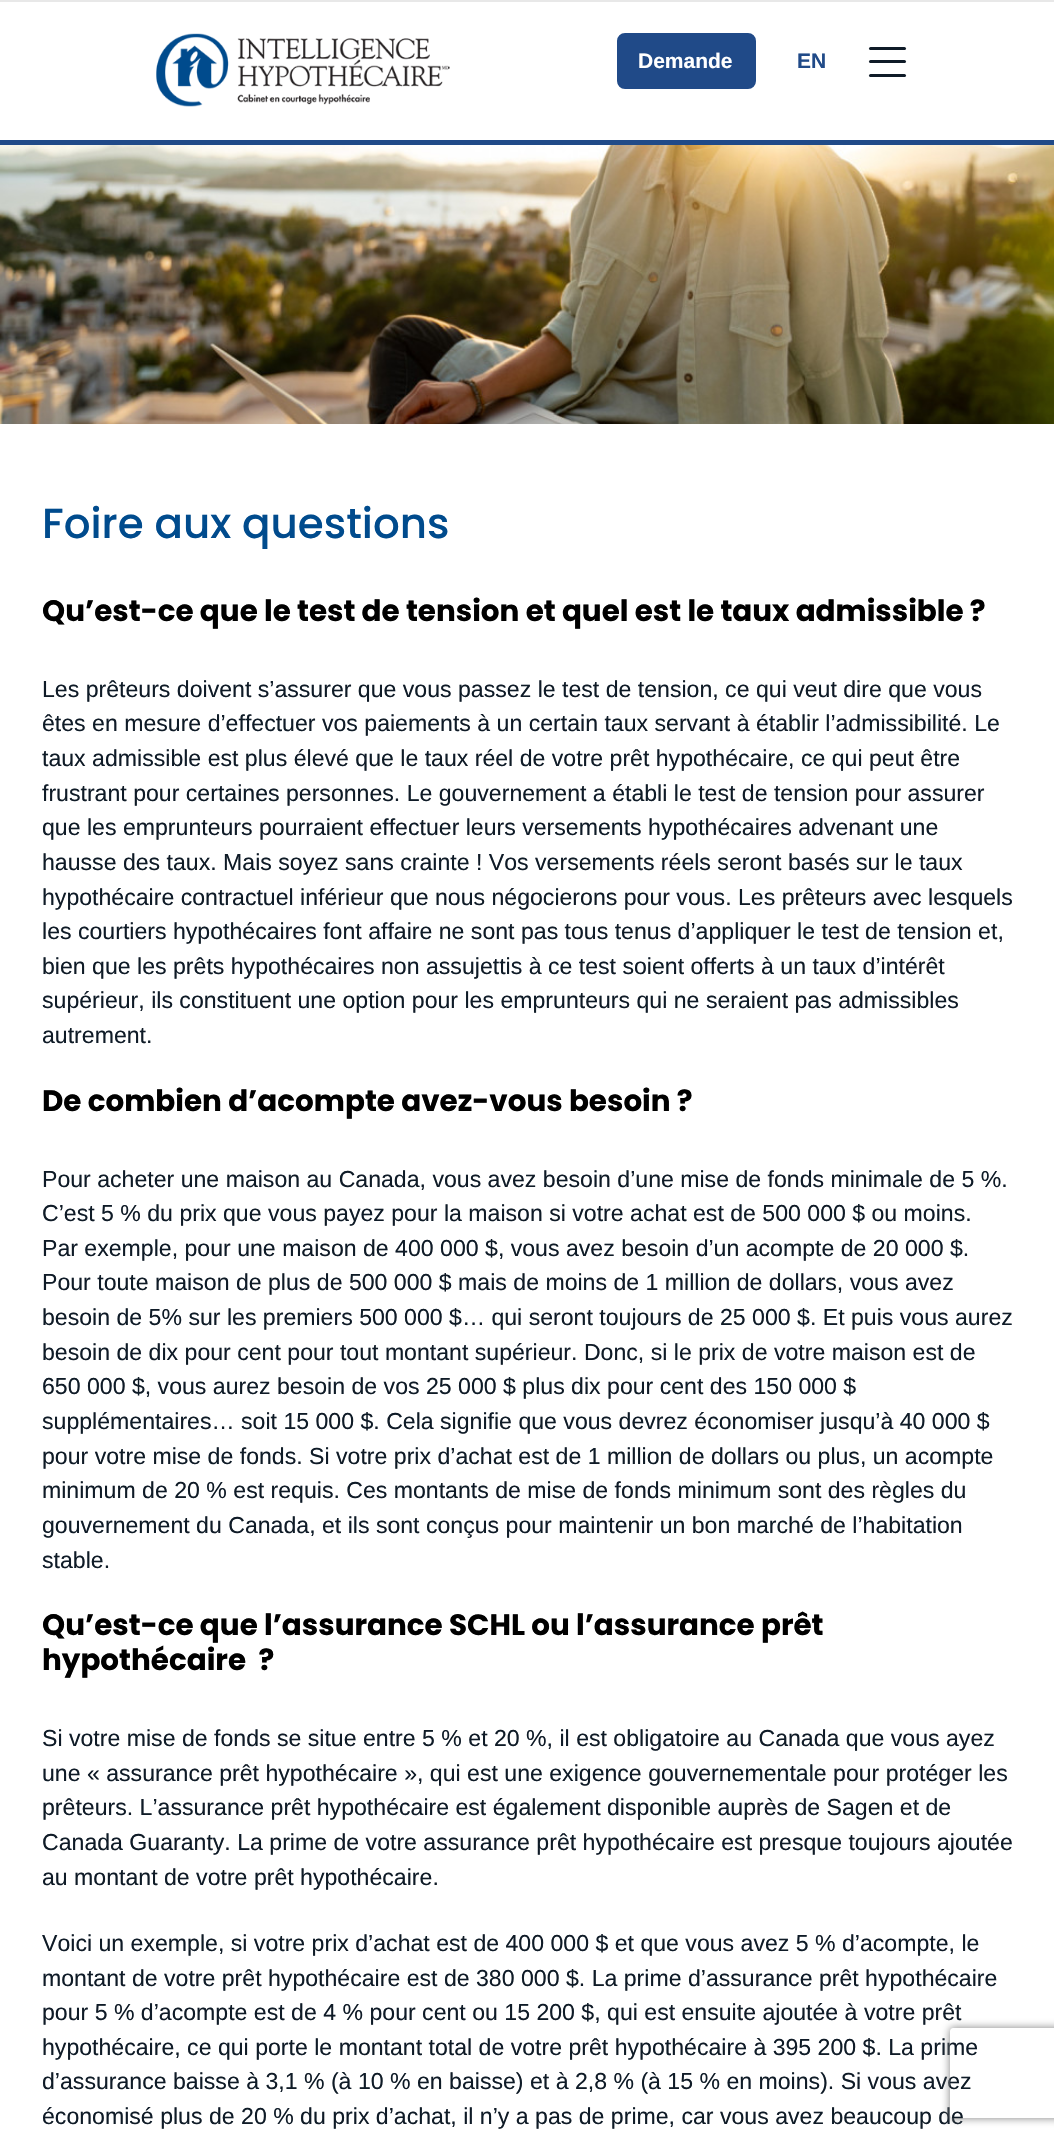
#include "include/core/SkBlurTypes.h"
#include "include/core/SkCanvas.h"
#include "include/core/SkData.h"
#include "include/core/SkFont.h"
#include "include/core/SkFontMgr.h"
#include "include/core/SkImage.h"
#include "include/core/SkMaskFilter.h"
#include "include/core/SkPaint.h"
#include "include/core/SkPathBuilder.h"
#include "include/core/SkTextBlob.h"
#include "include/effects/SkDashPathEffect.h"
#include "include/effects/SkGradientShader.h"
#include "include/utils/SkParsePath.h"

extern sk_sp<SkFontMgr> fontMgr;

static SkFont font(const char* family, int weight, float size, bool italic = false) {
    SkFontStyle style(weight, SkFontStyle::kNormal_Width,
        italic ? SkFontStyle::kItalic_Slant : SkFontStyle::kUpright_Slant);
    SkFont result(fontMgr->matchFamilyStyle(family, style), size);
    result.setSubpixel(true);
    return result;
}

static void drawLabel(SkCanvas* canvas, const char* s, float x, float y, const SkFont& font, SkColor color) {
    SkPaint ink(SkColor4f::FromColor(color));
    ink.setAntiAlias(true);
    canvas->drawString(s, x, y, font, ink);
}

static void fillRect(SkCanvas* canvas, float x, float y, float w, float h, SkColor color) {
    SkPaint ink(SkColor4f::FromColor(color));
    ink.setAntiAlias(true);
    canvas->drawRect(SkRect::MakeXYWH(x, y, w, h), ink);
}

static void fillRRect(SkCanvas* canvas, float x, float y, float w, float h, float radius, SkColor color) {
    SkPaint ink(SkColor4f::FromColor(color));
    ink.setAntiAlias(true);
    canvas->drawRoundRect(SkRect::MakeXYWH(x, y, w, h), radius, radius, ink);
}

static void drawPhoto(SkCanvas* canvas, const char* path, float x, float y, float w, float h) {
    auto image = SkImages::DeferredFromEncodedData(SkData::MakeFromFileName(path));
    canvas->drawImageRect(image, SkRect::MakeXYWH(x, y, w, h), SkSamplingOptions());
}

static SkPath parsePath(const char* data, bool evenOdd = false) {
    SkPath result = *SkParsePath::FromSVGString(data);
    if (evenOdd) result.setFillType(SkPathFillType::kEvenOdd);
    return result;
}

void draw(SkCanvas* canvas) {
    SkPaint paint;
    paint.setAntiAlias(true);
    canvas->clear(0xFFFFFFFF);
    fillRect(canvas, 0, 140, 1054, 5, 0xFF204A88);
    fillRect(canvas, 0, 0, 1054, 2, 0xFFE8E8E8);
    drawPhoto(canvas, "assets/img1.png", 156, 33, 294, 74);
    paint.setColor(0xFF204A88);
    canvas->drawRoundRect(SkRect::MakeXYWH(618, 34, 137, 54), 7, 7, paint);
    paint.setStroke(true);
    paint.setStrokeWidth(2);
    canvas->drawRoundRect(SkRect::MakeXYWH(618, 34, 137, 54), 7, 7, paint);
    SkFont font1 = font("Liberation Sans", 700, 21);
    drawLabel(canvas, "Demande", 638, 68, font1, 0xFFFFFFFF);
    drawLabel(canvas, "EN", 797, 68, font1, 0xFF204A88);
    fillRRect(canvas, 869, 47, 37, 3, 1.5f, 0xFF0F1B27);
    fillRRect(canvas, 869, 60, 37, 3, 1.5f, 0xFF0F1B27);
    fillRRect(canvas, 869, 74, 37, 3, 1.5f, 0xFF0F1B27);
    drawPhoto(canvas, "assets/img2.png", 0, 145, 1054, 279);
    SkFont font2 = font("Poppins", 500, 42);
    drawLabel(canvas, "Foire aux questions", 42, 538, font2, 0xFF004B8D);
    SkFont font3 = font("Poppins", 700, 29.4f);
    drawLabel(canvas, "Qu’est-ce que le test de tension et quel est le taux admissible ?", 42, 621, font3, 0xFF000000);
    SkFont font4 = font("Liberation Sans", 400, 23.1f);
    drawLabel(canvas, "Les prêteurs doivent s’assurer que vous passez le test de tension, ce qui veut dire que vous", 42, 697, font4, 0xFF0F1B27);
    drawLabel(canvas, "êtes en mesure d’effectuer vos paiements à un certain taux servant à établir l’admissibilité. Le", 42, 731, font4, 0xFF0F1B27);
    drawLabel(canvas, "taux admissible est plus élevé que le taux réel de votre prêt hypothécaire, ce qui peut être", 42, 766, font4, 0xFF0F1B27);
    drawLabel(canvas, "frustrant pour certaines personnes. Le gouvernement a établi le test de tension pour assurer", 42, 801, font4, 0xFF0F1B27);
    drawLabel(canvas, "que les emprunteurs pourraient effectuer leurs versements hypothécaires advenant une", 42, 835, font4, 0xFF0F1B27);
    drawLabel(canvas, "hausse des taux. Mais soyez sans crainte ! Vos versements réels seront basés sur le taux", 42, 870, font4, 0xFF0F1B27);
    drawLabel(canvas, "hypothécaire contractuel inférieur que nous négocierons pour vous. Les prêteurs avec lesquels", 42, 905, font4, 0xFF0F1B27);
    drawLabel(canvas, "les courtiers hypothécaires font affaire ne sont pas tous tenus d’appliquer le test de tension et,", 42, 939, font4, 0xFF0F1B27);
    drawLabel(canvas, "bien que les prêts hypothécaires non assujettis à ce test soient offerts à un taux d’intérêt", 42, 974, font4, 0xFF0F1B27);
    drawLabel(canvas, "supérieur, ils constituent une option pour les emprunteurs qui ne seraient pas admissibles", 42, 1008, font4, 0xFF0F1B27);
    drawLabel(canvas, "autrement.", 42, 1043, font4, 0xFF0F1B27);
    drawLabel(canvas, "De combien d’acompte avez-vous besoin ?", 42, 1111, font3, 0xFF000000);
    drawLabel(canvas, "Pour acheter une maison au Canada, vous avez besoin d’une mise de fonds minimale de 5 %.", 42, 1187, font4, 0xFF0F1B27);
    drawLabel(canvas, "C’est 5 % du prix que vous payez pour la maison si votre achat est de 500 000 $ ou moins.", 42, 1221, font4, 0xFF0F1B27);
    drawLabel(canvas, "Par exemple, pour une maison de 400 000 $, vous avez besoin d’un acompte de 20 000 $.", 42, 1256, font4, 0xFF0F1B27);
    drawLabel(canvas, "Pour toute maison de plus de 500 000 $ mais de moins de 1 million de dollars, vous avez", 42, 1290, font4, 0xFF0F1B27);
    drawLabel(canvas, "besoin de 5% sur les premiers 500 000 $… qui seront toujours de 25 000 $. Et puis vous aurez", 42, 1325, font4, 0xFF0F1B27);
    drawLabel(canvas, "besoin de dix pour cent pour tout montant supérieur. Donc, si le prix de votre maison est de", 42, 1360, font4, 0xFF0F1B27);
    drawLabel(canvas, "650 000 $, vous aurez besoin de vos 25 000 $ plus dix pour cent des 150 000 $", 42, 1394, font4, 0xFF0F1B27);
    drawLabel(canvas, "supplémentaires… soit 15 000 $. Cela signifie que vous devrez économiser jusqu’à 40 000 $", 42, 1429, font4, 0xFF0F1B27);
    drawLabel(canvas, "pour votre mise de fonds. Si votre prix d’achat est de 1 million de dollars ou plus, un acompte", 42, 1464, font4, 0xFF0F1B27);
    drawLabel(canvas, "minimum de 20 % est requis. Ces montants de mise de fonds minimum sont des règles du", 42, 1498, font4, 0xFF0F1B27);
    drawLabel(canvas, "gouvernement du Canada, et ils sont conçus pour maintenir un bon marché de l’habitation", 42, 1533, font4, 0xFF0F1B27);
    drawLabel(canvas, "stable.", 42, 1568, font4, 0xFF0F1B27);
    drawLabel(canvas, "Qu’est-ce que l’assurance SCHL ou l’assurance prêt", 42, 1635, font3, 0xFF000000);
    drawLabel(canvas, "hypothécaire  ?", 42, 1670, font3, 0xFF000000);
    drawLabel(canvas, "Si votre mise de fonds se situe entre 5 % et 20 %, il est obligatoire au Canada que vous ayez", 42, 1746, font4, 0xFF0F1B27);
    drawLabel(canvas, "une « assurance prêt hypothécaire », qui est une exigence gouvernementale pour protéger les", 42, 1781, font4, 0xFF0F1B27);
    drawLabel(canvas, "prêteurs. L’assurance prêt hypothécaire est également disponible auprès de Sagen et de", 42, 1815, font4, 0xFF0F1B27);
    drawLabel(canvas, "Canada Guaranty. La prime de votre assurance prêt hypothécaire est presque toujours ajoutée", 42, 1850, font4, 0xFF0F1B27);
    drawLabel(canvas, "au montant de votre prêt hypothécaire.", 42, 1885, font4, 0xFF0F1B27);
    drawLabel(canvas, "Voici un exemple, si votre prix d’achat est de 400 000 $ et que vous avez 5 % d’acompte, le", 42, 1951, font4, 0xFF0F1B27);
    drawLabel(canvas, "montant de votre prêt hypothécaire est de 380 000 $. La prime d’assurance prêt hypothécaire", 42, 1986, font4, 0xFF0F1B27);
    drawLabel(canvas, "pour 5 % d’acompte est de 4 % pour cent ou 15 200 $, qui est ensuite ajoutée à votre prêt", 42, 2020, font4, 0xFF0F1B27);
    drawLabel(canvas, "hypothécaire, ce qui porte le montant total de votre prêt hypothécaire à 395 200 $. La prime", 42, 2055, font4, 0xFF0F1B27);
    drawLabel(canvas, "d’assurance baisse à 3,1 % (à 10 % en baisse) et à 2,8 % (à 15 % en moins). Si vous avez", 42, 2089, font4, 0xFF0F1B27);
    drawLabel(canvas, "économisé plus de 20 % du prix d’achat, il n’y a pas de prime, car vous avez beaucoup de", 42, 2124, font4, 0xFF0F1B27);
    canvas->save();
    canvas->clipPath(parsePath("M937 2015H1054V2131H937ZM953 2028H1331C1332.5 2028 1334 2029.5 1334 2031V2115C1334 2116.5 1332.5 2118 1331 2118H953C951.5 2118 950 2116.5 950 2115V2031C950 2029.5 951.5 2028 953 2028Z", true), true);
    paint.setStroke(false);
    paint.setColor(0xFF808080);
    paint.setMaskFilter(SkMaskFilter::MakeBlur(kNormal_SkBlurStyle, 4));
    canvas->drawRoundRect(SkRect::MakeXYWH(950, 2028, 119, 90), 3, 3, paint);
    paint.setMaskFilter(nullptr);
    canvas->restore();
}
